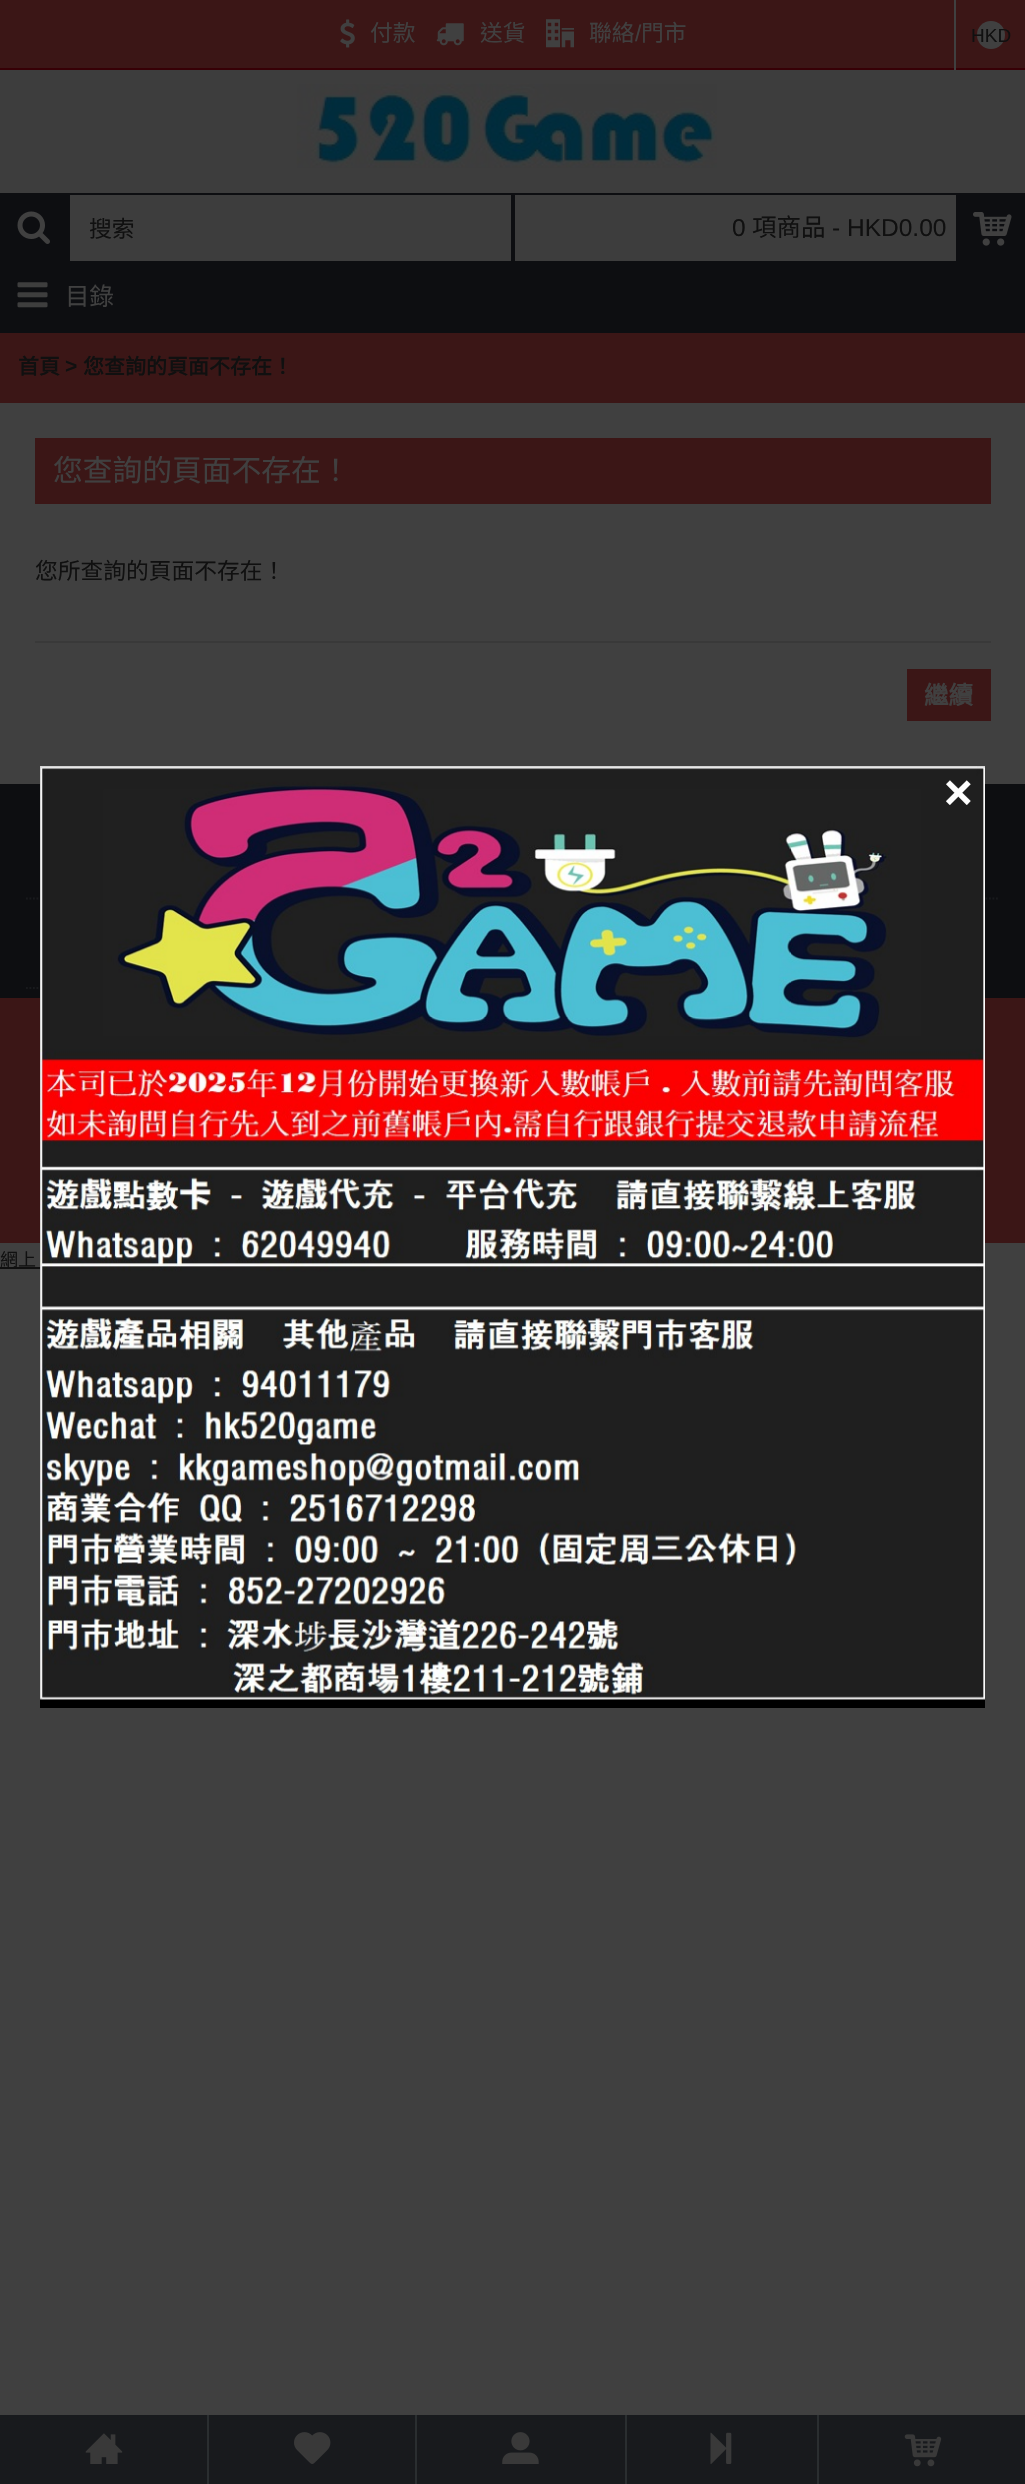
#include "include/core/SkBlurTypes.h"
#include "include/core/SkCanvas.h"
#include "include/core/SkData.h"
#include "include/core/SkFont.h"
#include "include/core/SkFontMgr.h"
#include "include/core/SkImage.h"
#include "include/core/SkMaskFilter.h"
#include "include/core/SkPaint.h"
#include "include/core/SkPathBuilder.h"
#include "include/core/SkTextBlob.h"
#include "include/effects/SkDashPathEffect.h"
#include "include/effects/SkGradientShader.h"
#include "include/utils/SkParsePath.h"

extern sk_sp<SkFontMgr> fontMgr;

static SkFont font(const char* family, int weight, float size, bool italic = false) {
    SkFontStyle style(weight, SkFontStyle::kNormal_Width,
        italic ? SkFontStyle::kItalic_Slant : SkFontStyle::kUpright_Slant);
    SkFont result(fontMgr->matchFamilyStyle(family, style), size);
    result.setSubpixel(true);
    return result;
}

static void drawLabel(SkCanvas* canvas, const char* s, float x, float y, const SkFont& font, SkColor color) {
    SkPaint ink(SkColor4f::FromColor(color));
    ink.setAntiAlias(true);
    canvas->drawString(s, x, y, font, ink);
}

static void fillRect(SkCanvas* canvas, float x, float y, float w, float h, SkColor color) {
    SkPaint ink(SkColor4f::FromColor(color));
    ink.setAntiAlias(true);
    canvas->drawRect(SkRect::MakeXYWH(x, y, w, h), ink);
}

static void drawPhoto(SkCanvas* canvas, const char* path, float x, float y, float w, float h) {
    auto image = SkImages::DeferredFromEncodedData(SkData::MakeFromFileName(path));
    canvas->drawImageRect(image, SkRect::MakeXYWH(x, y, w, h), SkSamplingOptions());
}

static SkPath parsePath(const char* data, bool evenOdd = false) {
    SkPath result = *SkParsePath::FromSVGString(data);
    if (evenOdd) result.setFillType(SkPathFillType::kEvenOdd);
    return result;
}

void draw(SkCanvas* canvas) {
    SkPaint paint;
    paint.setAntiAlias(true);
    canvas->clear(0xFF404040);
    fillRect(canvas, 0, 70, 1025, 191, 0xFF3D3D3D);
    fillRect(canvas, 0, 0, 1025, 68, 0xFF3B1616);
    fillRect(canvas, 0, 68, 1025, 2, 0xFF370006);
    drawPhoto(canvas, "assets/img1.png", 340, 19, 15, 29);
    SkFont font1 = font("Noto Sans CJK HK", 400, 22.75f);
    drawLabel(canvas, "付款", 370, 41, font1, 0xFF404040);
    drawPhoto(canvas, "assets/img2.png", 436, 23, 28, 23);
    drawLabel(canvas, "送貨", 480, 41, font1, 0xFF404040);
    drawPhoto(canvas, "assets/img3.png", 546, 19, 28, 29);
    drawLabel(canvas, "聯絡", 589, 41, font1, 0xFF404040);
    SkFont font2 = font("Liberation Sans", 400, 22.75f);
    drawLabel(canvas, "/", 635, 41, font2, 0xFF404040);
    drawLabel(canvas, "門市", 641, 41, font1, 0xFF404040);
    fillRect(canvas, 954, 0, 2, 70, 0xFF404040);
    paint.setColor(0xFF404040);
    canvas->drawCircle(991, 35, 14, paint);
    SkFont font3 = font("Liberation Sans", 400, 19);
    drawLabel(canvas, "HKD", 971, 42, font3, 0xFF101010);
    fillRect(canvas, 0, 2415, 1025, 69, 0xFF181A1D);
    fillRect(canvas, 207, 2415, 2, 69, 0xFF2A2E30);
    drawPhoto(canvas, "assets/img4.png", 85, 2433, 38, 31);
    fillRect(canvas, 415, 2415, 2, 69, 0xFF2A2E30);
    drawPhoto(canvas, "assets/img5.png", 294, 2432, 37, 32);
    fillRect(canvas, 625, 2415, 2, 69, 0xFF2A2E30);
    drawPhoto(canvas, "assets/img6.png", 502, 2432, 37, 32);
    fillRect(canvas, 817, 2415, 2, 69, 0xFF2A2E30);
    drawPhoto(canvas, "assets/img7.png", 710, 2432, 22, 32);
    drawPhoto(canvas, "assets/img8.png", 904, 2434, 38, 33);
    drawPhoto(canvas, "assets/img9.png", 296, 83, 421, 85);
    paint.setStroke(true);
    paint.setStrokeWidth(2);
    paint.setColor(0xFF0D0E11);
    canvas->drawRect(SkRect::MakeXYWH(1, 194, 511, 68), paint);
    fillRect(canvas, 2, 195, 68, 66, 0xFF0D0E11);
    drawPhoto(canvas, "assets/img10.png", 17, 211, 33, 33);
    drawLabel(canvas, "搜索", 89, 237, font1, 0xFF101010);
    fillRect(canvas, 513, 193, 512, 2, 0xFF0D0E11);
    fillRect(canvas, 513, 261, 512, 2, 0xFF0D0E11);
    fillRect(canvas, 513, 193, 2, 70, 0xFF0D0E11);
    SkFont font4 = font("Liberation Sans", 400, 24.5f);
    drawLabel(canvas, "0", 732, 236, font4, 0xFF101010);
    SkFont font5 = font("Noto Sans CJK HK", 400, 24.5f);
    drawLabel(canvas, "項商品", 752, 236, font5, 0xFF101010);
    drawLabel(canvas, "- HKD0.00", 832, 236, font4, 0xFF101010);
    fillRect(canvas, 956, 195, 69, 66, 0xFF0D0E11);
    drawPhoto(canvas, "assets/img11.png", 973, 212, 39, 34);
    fillRect(canvas, 0, 263, 1025, 70, 0xFF0D0E11);
    drawPhoto(canvas, "assets/img12.png", 17, 282, 31, 26);
    drawLabel(canvas, "目錄", 65, 305, font5, 0xFF404040);
    fillRect(canvas, 0, 333, 1025, 70, 0xFF3B1616);
    SkFont font6 = font("Noto Sans CJK HK", 700, 21);
    drawLabel(canvas, "首頁", 18, 374, font6, 0xFF101010);
    SkFont font7 = font("Liberation Sans", 700, 21);
    drawLabel(canvas, ">", 65, 373, font7, 0xFF101010);
    drawLabel(canvas, "您查詢的頁面不存在！", 83, 374, font6, 0xFF101010);
    fillRect(canvas, 35, 438, 956, 66, 0xFF3B1616);
    SkFont font8 = font("Noto Sans CJK HK", 400, 29.75f);
    drawLabel(canvas, "您查詢的頁面不存在！", 53, 481, font8, 0xFF404040);
    drawLabel(canvas, "您所查詢的頁面不存在！", 35, 579, font1, 0xFF101010);
    fillRect(canvas, 35, 641, 956, 2, 0xFF393939);
    fillRect(canvas, 907, 669, 84, 52, 0xFF3B1616);
    SkFont font9 = font("Noto Sans CJK HK", 700, 24.5f);
    drawLabel(canvas, "繼續", 924, 704, font9, 0xFF404040);
    fillRect(canvas, 40, 1698, 945, 10, 0xFF000000);
    fillRect(canvas, 0, 784, 1025, 214, 0xFF0D0E11);
    paint.setStrokeWidth(1.8f);
    paint.setColor(0xFF181A1D);
    paint.setPathEffect(SkDashPathEffect::Make({{1.75f, 1.75f}}, 0));
    canvas->drawPath(parsePath("M26 898.5H500.5"), paint);
    paint.setPathEffect(nullptr);
    paint.setPathEffect(SkDashPathEffect::Make({{1.75f, 1.75f}}, 0));
    canvas->drawPath(parsePath("M527 898.5H999"), paint);
    paint.setPathEffect(nullptr);
    paint.setPathEffect(SkDashPathEffect::Make({{1.75f, 1.75f}}, 0));
    canvas->drawPath(parsePath("M26 988H500.5"), paint);
    paint.setPathEffect(nullptr);
    fillRect(canvas, 0, 998, 1025, 245, 0xFF3B1616);
    drawPhoto(canvas, "assets/img13.png", 40, 766, 945, 934);
    SkFont font10 = font("Liberation Sans", 700, 49);
    drawLabel(canvas, "×", 944, 809, font10, 0xFFFFFFFF);
    fillRect(canvas, 0, 1267, 40, 2, 0xFF101010);
    SkFont font11 = font("Noto Sans CJK HK", 400, 18);
    drawLabel(canvas, "網上", 0, 1266, font11, 0xFF101010);
}
